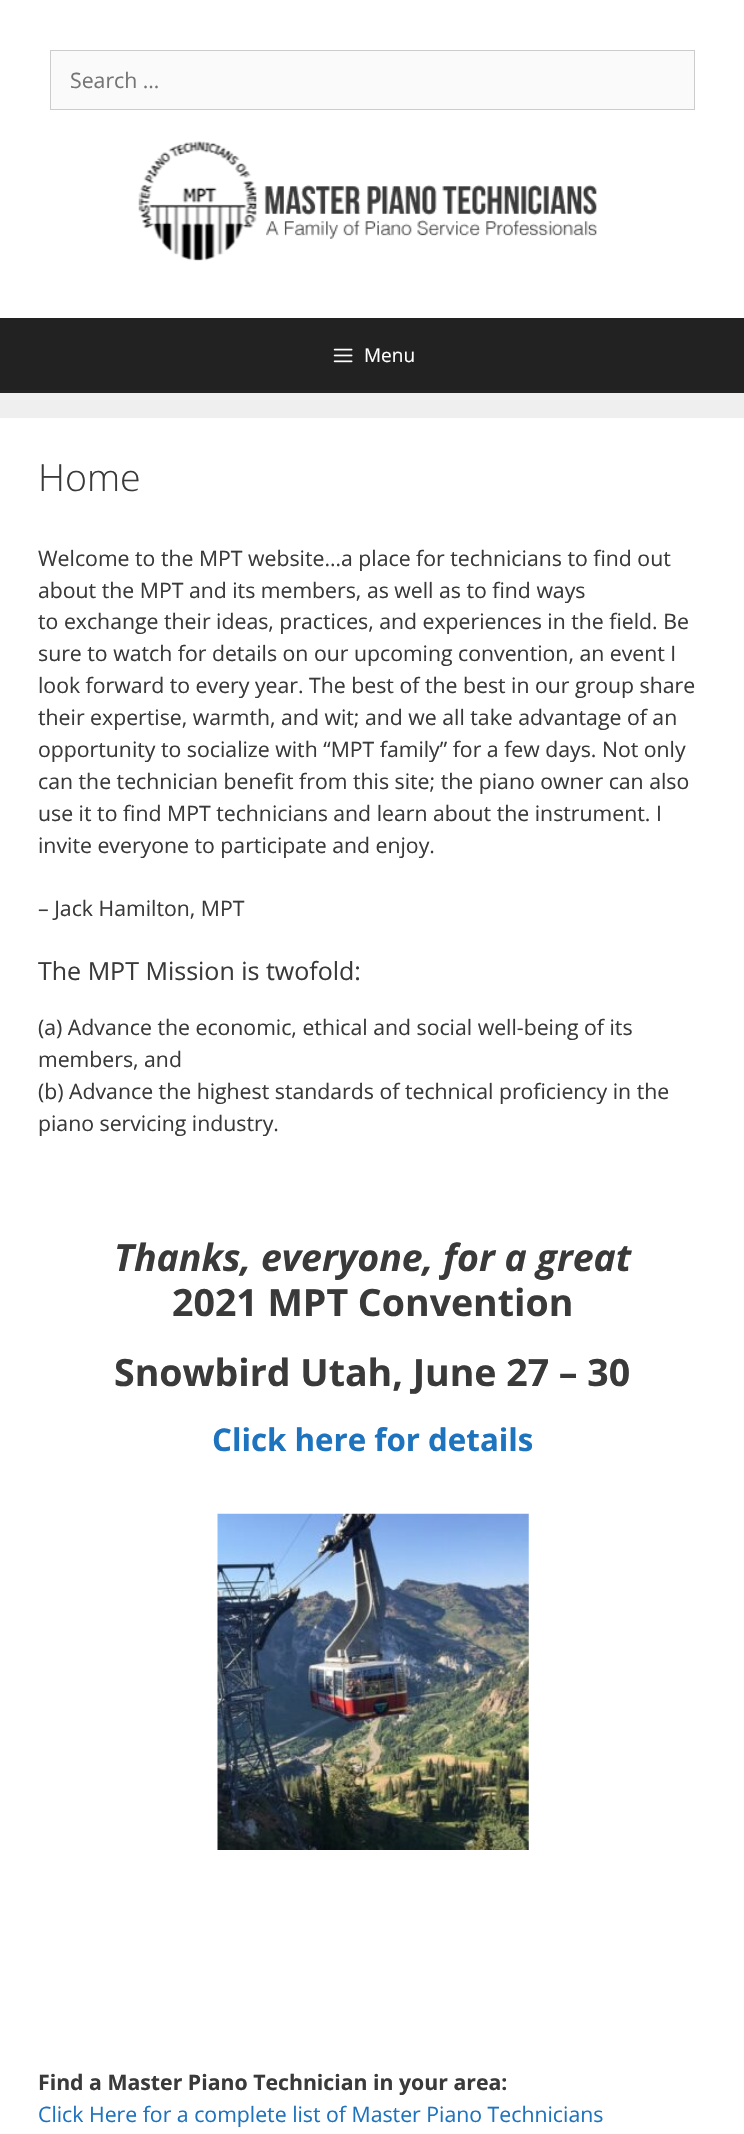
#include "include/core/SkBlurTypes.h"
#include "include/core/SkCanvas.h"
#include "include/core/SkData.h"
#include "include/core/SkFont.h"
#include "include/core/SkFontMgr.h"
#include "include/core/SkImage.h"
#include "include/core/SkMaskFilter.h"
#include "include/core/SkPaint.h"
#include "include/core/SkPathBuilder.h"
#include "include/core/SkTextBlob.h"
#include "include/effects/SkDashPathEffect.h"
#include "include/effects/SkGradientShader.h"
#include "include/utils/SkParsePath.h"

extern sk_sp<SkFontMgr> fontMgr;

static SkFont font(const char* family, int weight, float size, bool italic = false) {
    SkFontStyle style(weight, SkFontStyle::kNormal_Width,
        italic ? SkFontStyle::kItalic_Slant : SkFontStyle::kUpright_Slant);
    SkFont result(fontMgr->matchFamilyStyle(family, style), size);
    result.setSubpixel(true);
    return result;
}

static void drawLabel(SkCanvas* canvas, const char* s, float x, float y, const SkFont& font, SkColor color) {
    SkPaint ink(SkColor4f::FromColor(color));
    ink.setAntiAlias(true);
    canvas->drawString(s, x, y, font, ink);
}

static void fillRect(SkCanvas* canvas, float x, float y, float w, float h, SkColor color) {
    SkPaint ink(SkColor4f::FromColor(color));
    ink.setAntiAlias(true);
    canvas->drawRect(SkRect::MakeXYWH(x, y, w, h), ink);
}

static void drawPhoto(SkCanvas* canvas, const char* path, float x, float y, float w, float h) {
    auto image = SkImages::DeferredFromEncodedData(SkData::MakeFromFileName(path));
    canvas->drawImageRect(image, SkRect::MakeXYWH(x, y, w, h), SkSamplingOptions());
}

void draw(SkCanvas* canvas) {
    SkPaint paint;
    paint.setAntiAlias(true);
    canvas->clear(0xFFEFEFEF);
    fillRect(canvas, 0, 0, 744, 318, 0xFFFFFFFF);
    paint.setColor(0xFFFAFAFA);
    canvas->drawRect(SkRect::MakeXYWH(50.5f, 50.5f, 644, 59), paint);
    paint.setStroke(true);
    paint.setStrokeWidth(1);
    paint.setColor(0xFFCCCCCC);
    canvas->drawRect(SkRect::MakeXYWH(50.5f, 50.5f, 644, 59), paint);
    SkFont font1 = font("Open Sans", 400, 21.25f);
    drawLabel(canvas, "Search …", 70, 88, font1, 0xFF757575);
    drawPhoto(canvas, "assets/img1.png", 138, 141, 459, 120);
    fillRect(canvas, 0, 318, 744, 75, 0xFF222222);
    drawPhoto(canvas, "assets/img2.png", 333, 348, 20, 15);
    SkFont font2 = font("Open Sans", 400, 19);
    drawLabel(canvas, "Menu", 364, 362, font2, 0xFFFFFFFF);
    fillRect(canvas, 0, 418, 744, 1716, 0xFFFFFFFF);
    SkFont font3 = font("Open Sans", 300, 37.5f);
    drawLabel(canvas, "Home", 38, 491, font3, 0xFF3A3A3A);
    drawLabel(canvas, "Welcome to the MPT website…a place for technicians to find out", 38, 566, font1, 0xFF3A3A3A);
    drawLabel(canvas, "about the MPT and its members, as well as to find ways", 38, 598, font1, 0xFF3A3A3A);
    drawLabel(canvas, "to exchange their ideas, practices, and experiences in the field. Be", 38, 629, font1, 0xFF3A3A3A);
    drawLabel(canvas, "sure to watch for details on our upcoming convention, an event I", 38, 661, font1, 0xFF3A3A3A);
    drawLabel(canvas, "look forward to every year. The best of the best in our group share", 38, 693, font1, 0xFF3A3A3A);
    drawLabel(canvas, "their expertise, warmth, and wit; and we all take advantage of an", 38, 725, font1, 0xFF3A3A3A);
    drawLabel(canvas, "opportunity to socialize with “MPT family” for a few days. Not only", 38, 757, font1, 0xFF3A3A3A);
    drawLabel(canvas, "can the technician benefit from this site; the piano owner can also", 38, 789, font1, 0xFF3A3A3A);
    drawLabel(canvas, "use it to find MPT technicians and learn about the instrument. I", 38, 821, font1, 0xFF3A3A3A);
    drawLabel(canvas, "invite everyone to participate and enjoy.", 38, 853, font1, 0xFF3A3A3A);
    drawLabel(canvas, "– Jack Hamilton, MPT", 38, 916, font1, 0xFF3A3A3A);
    SkFont font4 = font("Open Sans", 400, 25);
    drawLabel(canvas, "The MPT Mission is twofold:", 38, 980, font4, 0xFF3A3A3A);
    drawLabel(canvas, "(a) Advance the economic, ethical and social well-being of its", 38, 1035, font1, 0xFF3A3A3A);
    drawLabel(canvas, "members, and", 38, 1067, font1, 0xFF3A3A3A);
    drawLabel(canvas, "(b) Advance the highest standards of technical proficiency in the", 38, 1099, font1, 0xFF3A3A3A);
    drawLabel(canvas, "piano servicing industry.", 38, 1131, font1, 0xFF3A3A3A);
    SkFont font5 = font("Open Sans", 700, 37.5f, true);
    drawLabel(canvas, "Thanks, everyone, for a great", 114, 1271, font5, 0xFF3A3A3A);
    SkFont font6 = font("Open Sans", 700, 37.5f);
    drawLabel(canvas, "2021 MPT Convention", 172, 1316, font6, 0xFF3A3A3A);
    drawLabel(canvas, "Snowbird Utah, June 27 – 30", 114, 1386, font6, 0xFF3A3A3A);
    SkFont font7 = font("Open Sans", 700, 31.25f);
    drawLabel(canvas, "Click here for details", 212, 1451, font7, 0xFF1E73BE);
    drawPhoto(canvas, "assets/img3.png", 217, 1513, 312, 337);
    SkFont font8 = font("Open Sans", 700, 21.25f);
    drawLabel(canvas, "Find a Master Piano Technician in your area:", 38, 2090, font8, 0xFF3A3A3A);
    drawLabel(canvas, "Click Here for a complete list of Master Piano Technicians", 38, 2122, font1, 0xFF1E73BE);
}
